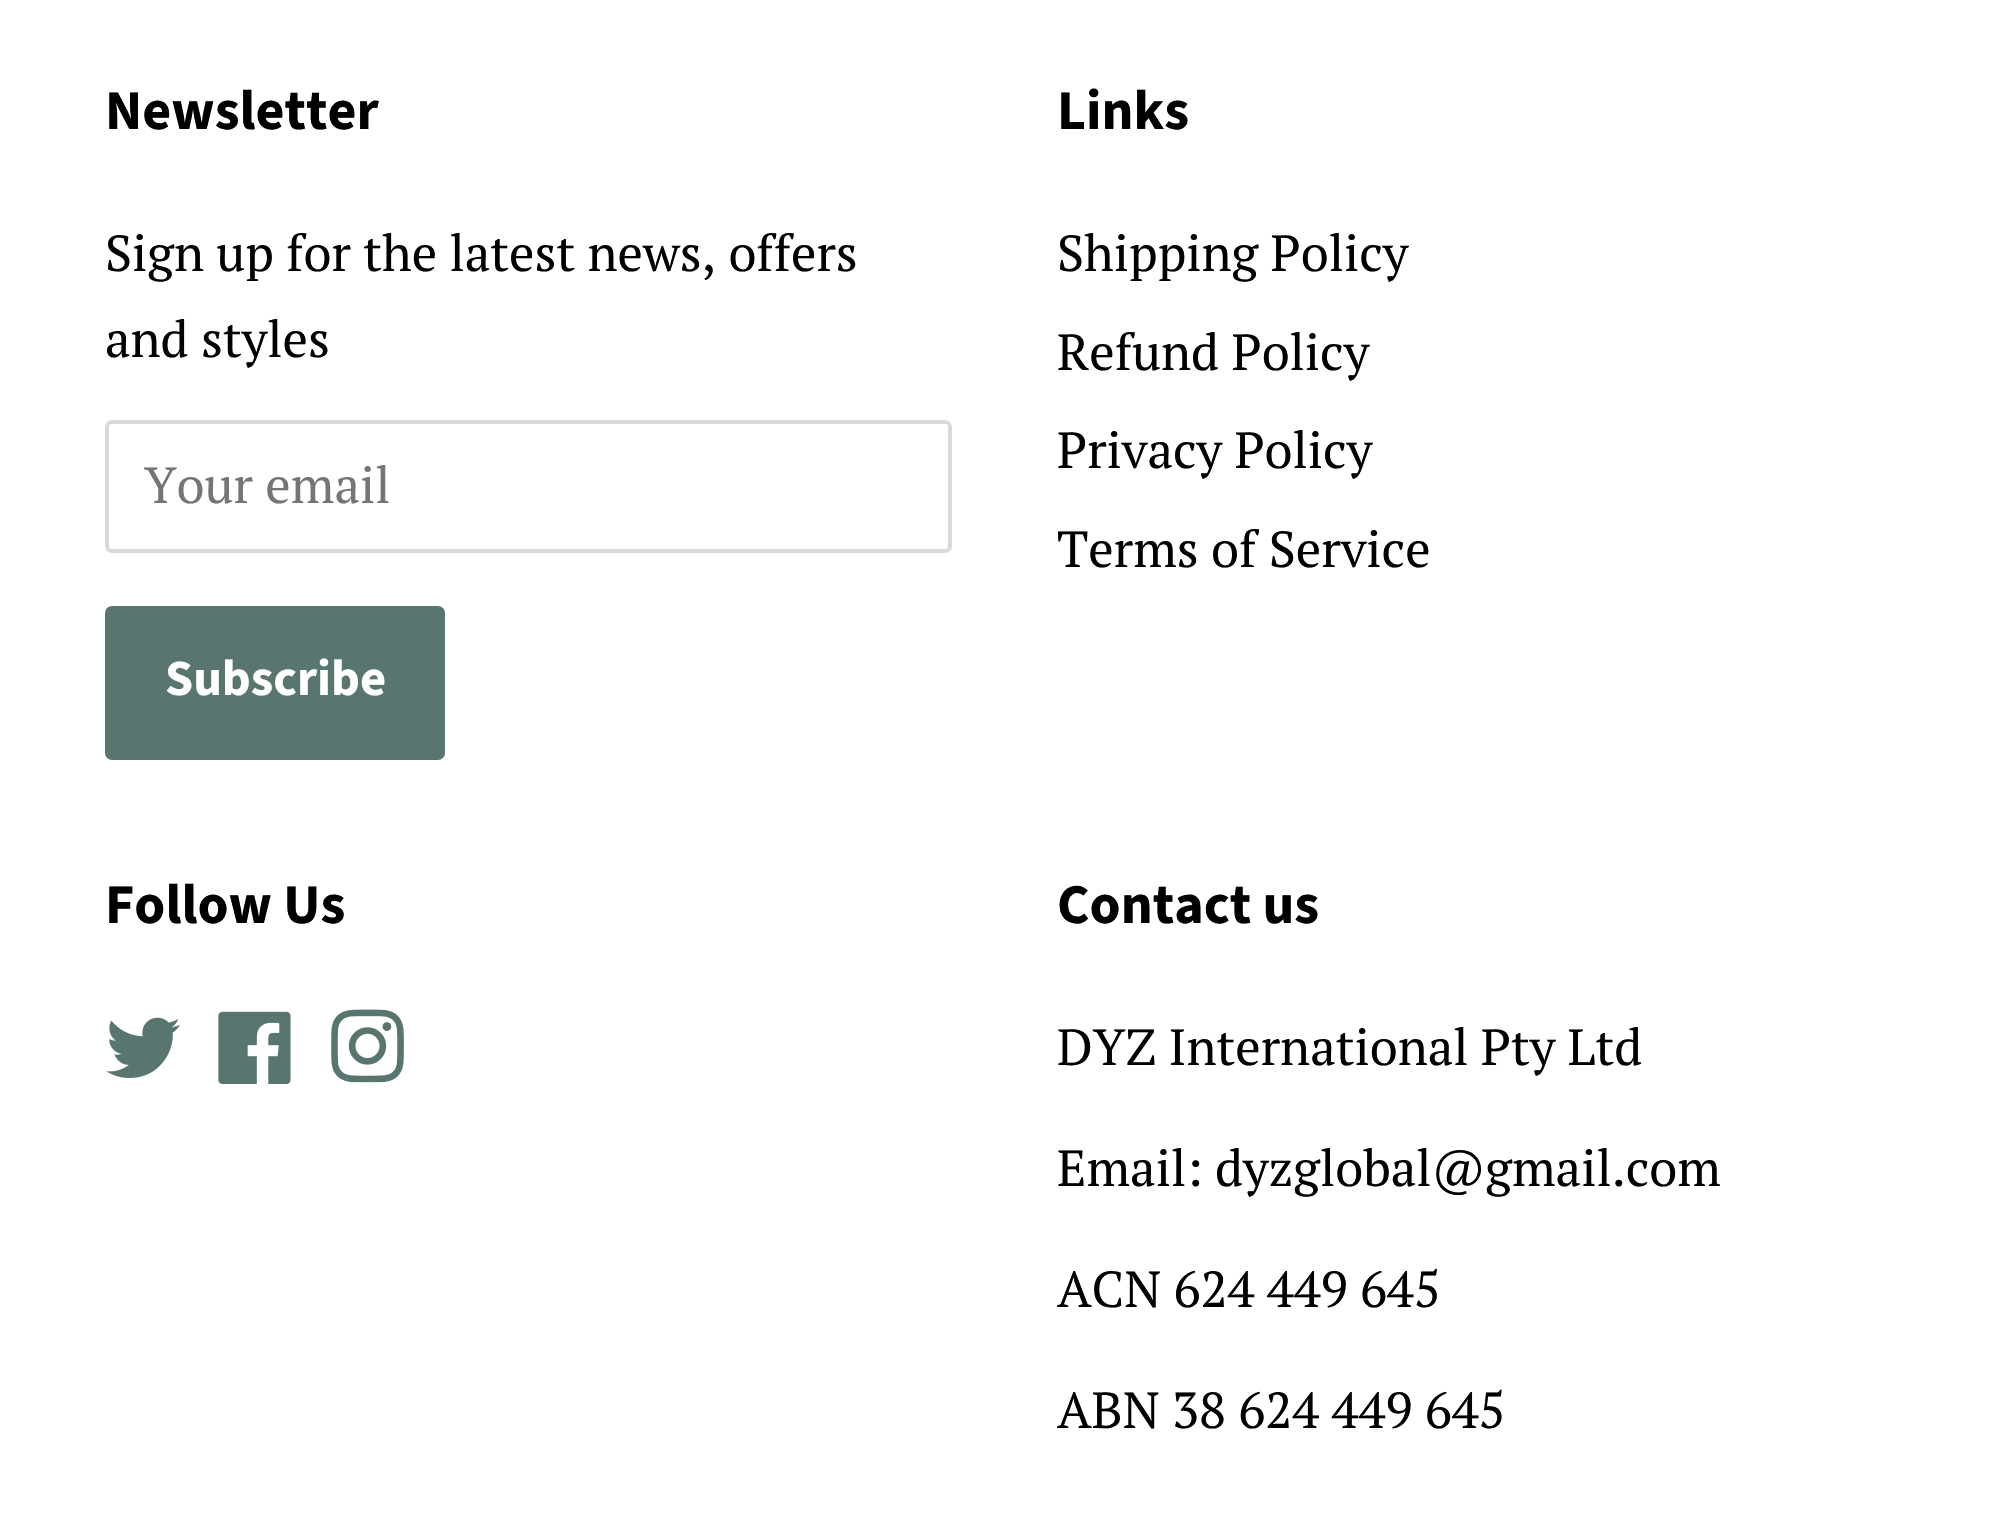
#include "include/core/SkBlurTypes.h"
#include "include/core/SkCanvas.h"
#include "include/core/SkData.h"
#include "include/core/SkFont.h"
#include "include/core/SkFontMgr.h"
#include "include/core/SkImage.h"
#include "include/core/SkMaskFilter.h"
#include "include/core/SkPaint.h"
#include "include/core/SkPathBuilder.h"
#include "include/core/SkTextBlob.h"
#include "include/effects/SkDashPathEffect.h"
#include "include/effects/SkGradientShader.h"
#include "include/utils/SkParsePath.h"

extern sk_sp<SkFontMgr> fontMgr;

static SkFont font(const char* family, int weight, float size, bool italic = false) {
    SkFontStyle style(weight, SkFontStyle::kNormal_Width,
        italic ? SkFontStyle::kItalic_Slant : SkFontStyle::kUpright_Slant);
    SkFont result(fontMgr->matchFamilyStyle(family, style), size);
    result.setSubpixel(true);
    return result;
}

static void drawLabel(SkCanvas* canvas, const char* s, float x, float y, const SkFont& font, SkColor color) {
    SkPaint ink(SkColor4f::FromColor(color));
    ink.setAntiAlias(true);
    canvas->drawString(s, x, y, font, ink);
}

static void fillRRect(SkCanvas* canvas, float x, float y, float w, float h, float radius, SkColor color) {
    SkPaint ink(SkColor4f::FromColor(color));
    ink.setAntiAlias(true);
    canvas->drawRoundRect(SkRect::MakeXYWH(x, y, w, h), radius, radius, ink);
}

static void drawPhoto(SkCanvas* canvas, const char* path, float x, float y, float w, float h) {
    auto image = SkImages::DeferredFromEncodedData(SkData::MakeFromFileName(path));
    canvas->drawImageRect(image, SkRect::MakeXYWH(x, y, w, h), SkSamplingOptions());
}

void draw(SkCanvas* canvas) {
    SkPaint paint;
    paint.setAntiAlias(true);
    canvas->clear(0xFFFFFFFF);
    SkFont font1 = font("Source Sans Pro", 700, 56);
    drawLabel(canvas, "Newsletter", 105, 129, font1, 0xFF000000);
    SkFont font2 = font("PT Serif", 400, 50.6f);
    drawLabel(canvas, "Sign up for the latest news, offers", 105, 271, font2, 0xFF000000);
    drawLabel(canvas, "and styles", 105, 357, font2, 0xFF000000);
    paint.setStroke(true);
    paint.setStrokeWidth(4);
    paint.setColor(0xFFD9D9D9);
    canvas->drawRoundRect(SkRect::MakeXYWH(107, 422, 843, 129), 5, 5, paint);
    canvas->save();
    canvas->clipRect(SkRect::MakeXYWH(144, 452, 770, 66));
    drawLabel(canvas, "Your email", 144, 503, font2, 0xFF757575);
    canvas->restore();
    fillRRect(canvas, 105, 606, 340, 154, 7, 0xFF59756F);
    SkFont font3 = font("Source Sans Pro", 700, 50.6f);
    drawLabel(canvas, "Subscribe", 165, 695, font3, 0xFFFFFFFF);
    drawLabel(canvas, "Links", 1057, 129, font1, 0xFF000000);
    drawLabel(canvas, "Shipping Policy", 1057, 271, font2, 0xFF000000);
    drawLabel(canvas, "Refund Policy", 1057, 370, font2, 0xFF000000);
    drawLabel(canvas, "Privacy Policy", 1057, 468, font2, 0xFF000000);
    drawLabel(canvas, "Terms of Service", 1057, 567, font2, 0xFF000000);
    drawLabel(canvas, "Follow Us", 105, 923, font1, 0xFF000000);
    drawPhoto(canvas, "assets/img1.png", 106, 1017, 74, 61);
    drawPhoto(canvas, "assets/img2.png", 218, 1011, 73, 73);
    drawPhoto(canvas, "assets/img3.png", 331, 1009, 73, 74);
    drawLabel(canvas, "Contact us", 1057, 923, font1, 0xFF000000);
    drawLabel(canvas, "DYZ International Pty Ltd", 1057, 1065, font2, 0xFF000000);
    drawLabel(canvas, "Email: dyzglobal@gmail.com", 1057, 1186, font2, 0xFF000000);
    drawLabel(canvas, "ACN 624 449 645", 1057, 1307, font2, 0xFF000000);
    drawLabel(canvas, "ABN 38 624 449 645", 1057, 1428, font2, 0xFF000000);
}
